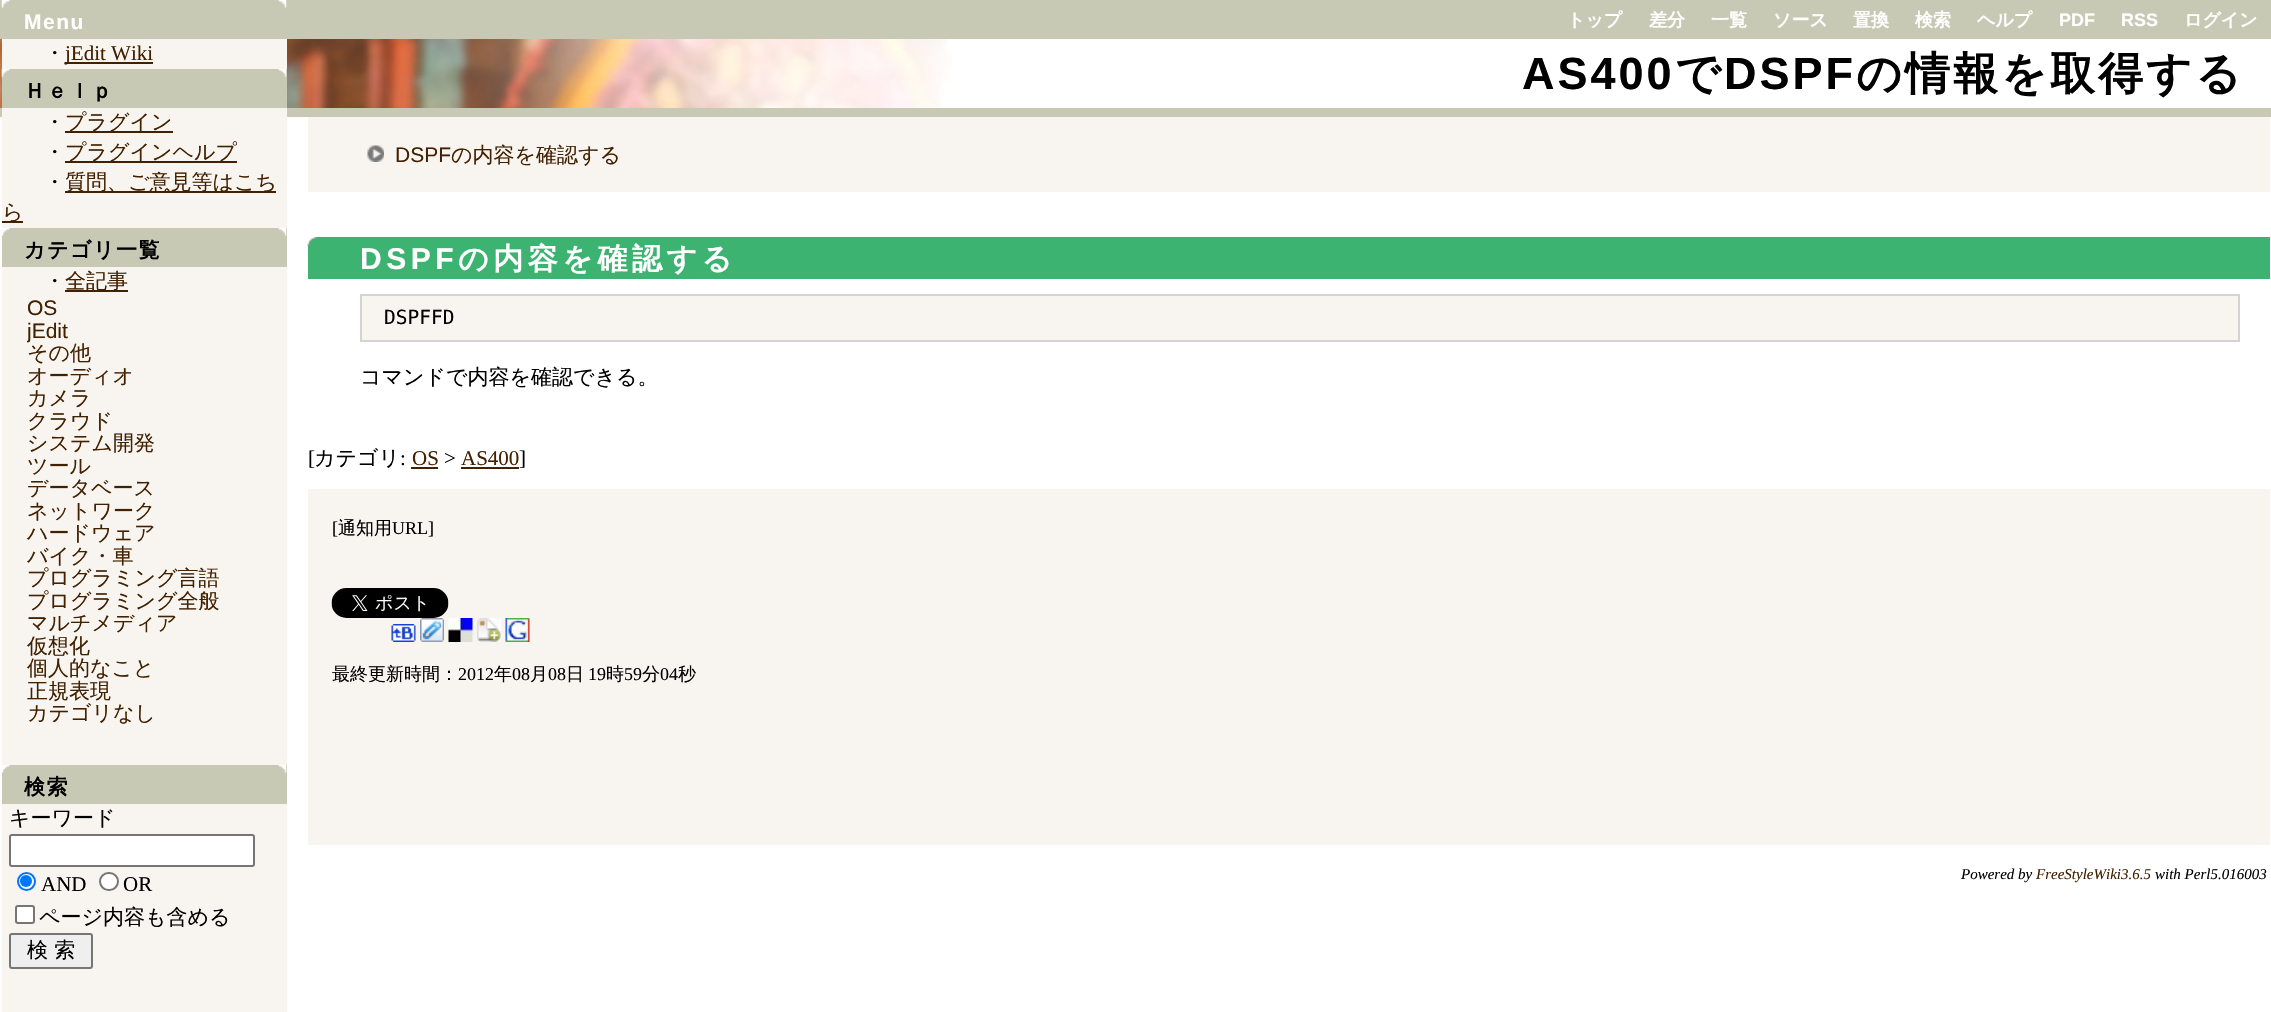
#include "include/core/SkBlurTypes.h"
#include "include/core/SkCanvas.h"
#include "include/core/SkData.h"
#include "include/core/SkFont.h"
#include "include/core/SkFontMgr.h"
#include "include/core/SkImage.h"
#include "include/core/SkMaskFilter.h"
#include "include/core/SkPaint.h"
#include "include/core/SkPathBuilder.h"
#include "include/core/SkTextBlob.h"
#include "include/effects/SkDashPathEffect.h"
#include "include/effects/SkGradientShader.h"
#include "include/utils/SkParsePath.h"

extern sk_sp<SkFontMgr> fontMgr;

static SkFont font(const char* family, int weight, float size, bool italic = false) {
    SkFontStyle style(weight, SkFontStyle::kNormal_Width,
        italic ? SkFontStyle::kItalic_Slant : SkFontStyle::kUpright_Slant);
    SkFont result(fontMgr->matchFamilyStyle(family, style), size);
    result.setSubpixel(true);
    return result;
}

static void drawLabel(SkCanvas* canvas, const char* s, float x, float y, const SkFont& font, SkColor color) {
    SkPaint ink(SkColor4f::FromColor(color));
    ink.setAntiAlias(true);
    canvas->drawString(s, x, y, font, ink);
}

static void drawTracked(SkCanvas* canvas, const char* s, float x, float y, const SkFont& font, const SkPaint& ink, float letter, float word) {
    std::vector<SkGlyphID> glyphs(font.countText(s, strlen(s), SkTextEncoding::kUTF8));
    std::vector<float> xs(glyphs.size());
    font.textToGlyphs(s, strlen(s), SkTextEncoding::kUTF8, glyphs);
    font.getXPos(glyphs, xs, x);
    float extra = 0;
    for (size_t i = 0; i < glyphs.size(); i++) {
        xs[i] += extra;
        extra += letter + word * (glyphs[i] == font.unicharToGlyph(' '));
    }
    canvas->drawTextBlob(SkTextBlob::MakeFromPosHGlyphs(glyphs, xs, y, font), 0, 0, ink);
}

static void fillRect(SkCanvas* canvas, float x, float y, float w, float h, SkColor color) {
    SkPaint ink(SkColor4f::FromColor(color));
    ink.setAntiAlias(true);
    canvas->drawRect(SkRect::MakeXYWH(x, y, w, h), ink);
}

static void drawPhoto(SkCanvas* canvas, const char* path, float x, float y, float w, float h) {
    auto image = SkImages::DeferredFromEncodedData(SkData::MakeFromFileName(path));
    canvas->drawImageRect(image, SkRect::MakeXYWH(x, y, w, h), SkSamplingOptions());
}

void draw(SkCanvas* canvas) {
    SkPaint paint;
    paint.setAntiAlias(true);
    canvas->clear(0xFFFFFFFF);
    drawPhoto(canvas, "assets/img4.png", 0, 39, 952, 69);
    fillRect(canvas, 0, 108, 2271, 9, 0xFFC8C9B5);
    fillRect(canvas, 2, 39, 285, 973, 0xFFF8F5F1);
    fillRect(canvas, 0, 0, 2271, 39, 0xFFC8C9B5);
    drawPhoto(canvas, "assets/img1.png", 1, 0, 286, 9);
    SkFont font1 = font("Liberation Sans", 700, 21);
    paint.setColor(0xFFFFFFFF);
    drawTracked(canvas, "Menu", 24, 29, font1, paint, 1.5f, 0);
    SkFont font2 = font("WenQuanYi Zen Hei", 500, 21);
    drawLabel(canvas, "・", 44, 60, font2, 0xFF000000);
    fillRect(canvas, 65, 62, 88, 2, 0xFF422100);
    SkFont font3 = font("Liberation Serif", 400, 21);
    drawLabel(canvas, "jEdit Wiki", 65, 60, font3, 0xFF422100);
    fillRect(canvas, 2, 69, 285, 39, 0xFFC8C9B5);
    drawPhoto(canvas, "assets/img2.png", 1, 69, 286, 9);
    SkFont font4 = font("WenQuanYi Zen Hei", 700, 21);
    paint.setColor(0xFF000000);
    drawTracked(canvas, "Ｈｅｌｐ", 24, 98, font4, paint, 1.5f, 0);
    drawLabel(canvas, "・", 44, 129, font2, 0xFF000000);
    fillRect(canvas, 65, 131, 108, 2, 0xFF422100);
    drawLabel(canvas, "プラグイン", 65, 129, font2, 0xFF422100);
    drawLabel(canvas, "・", 44, 159, font2, 0xFF000000);
    fillRect(canvas, 65, 161, 172, 2, 0xFF422100);
    drawLabel(canvas, "プラグインヘルプ", 65, 159, font2, 0xFF422100);
    drawLabel(canvas, "・", 44, 189, font2, 0xFF000000);
    fillRect(canvas, 65, 191, 211, 2, 0xFF422100);
    drawLabel(canvas, "質問、ご意見等はこち", 65, 189, font2, 0xFF422100);
    fillRect(canvas, 2, 221, 21, 2, 0xFF422100);
    drawLabel(canvas, "ら", 2, 219, font2, 0xFF422100);
    fillRect(canvas, 2, 228, 285, 39, 0xFFC8C9B5);
    drawPhoto(canvas, "assets/img3.png", 1, 228, 286, 9);
    drawTracked(canvas, "カテゴリ一覧", 24, 257, font4, paint, 1.5f, 0);
    drawLabel(canvas, "・", 44, 288, font2, 0xFF000000);
    fillRect(canvas, 65, 290, 63, 2, 0xFF422100);
    drawLabel(canvas, "全記事", 65, 288, font2, 0xFF422100);
    SkFont font5 = font("Liberation Sans", 400, 21);
    drawLabel(canvas, "OS", 27, 315, font5, 0xFF422100);
    drawLabel(canvas, "jEdit", 27, 338, font5, 0xFF422100);
    drawLabel(canvas, "その他", 27, 360, font2, 0xFF422100);
    fillRect(canvas, 26, 341, 1, 2, 0xFFF8F5F1);
    drawLabel(canvas, "オーディオ", 27, 383, font2, 0xFF422100);
    drawLabel(canvas, "カメラ", 27, 405, font2, 0xFF422100);
    drawLabel(canvas, "クラウド", 27, 428, font2, 0xFF422100);
    drawLabel(canvas, "システム開発", 27, 450, font2, 0xFF422100);
    drawLabel(canvas, "ツール", 27, 473, font2, 0xFF422100);
    drawLabel(canvas, "データベース", 27, 495, font2, 0xFF422100);
    drawLabel(canvas, "ネットワーク", 27, 518, font2, 0xFF422100);
    drawLabel(canvas, "ハードウェア", 27, 540, font2, 0xFF422100);
    drawLabel(canvas, "バイク・車", 27, 563, font2, 0xFF422100);
    drawLabel(canvas, "プログラミング言語", 27, 585, font2, 0xFF422100);
    drawLabel(canvas, "プログラミング全般", 27, 608, font2, 0xFF422100);
    drawLabel(canvas, "マルチメディア", 27, 630, font2, 0xFF422100);
    drawLabel(canvas, "仮想化", 27, 653, font2, 0xFF422100);
    drawLabel(canvas, "個人的なこと", 27, 675, font2, 0xFF422100);
    drawLabel(canvas, "正規表現", 27, 698, font2, 0xFF422100);
    drawLabel(canvas, "カテゴリなし", 27, 720, font2, 0xFF422100);
    fillRect(canvas, 2, 765, 285, 39, 0xFFC8C9B5);
    drawPhoto(canvas, "assets/img3.png", 1, 765, 286, 9);
    drawTracked(canvas, "検索", 24, 794, font4, paint, 1.5f, 0);
    drawLabel(canvas, "キーワード", 9, 825, font2, 0xFF000000);
    paint.setColor(0xFFFFFFFF);
    canvas->drawRoundRect(SkRect::MakeXYWH(10, 835, 244, 31), 2, 2, paint);
    paint.setStroke(true);
    paint.setStrokeWidth(2);
    paint.setColor(0xFF767676);
    canvas->drawRoundRect(SkRect::MakeXYWH(10, 835, 244, 31), 2, 2, paint);
    paint.setStroke(false);
    paint.setColor(0xFFFFFFFF);
    canvas->drawCircle(26.5f, 881.5f, 8.5f, paint);
    paint.setStroke(true);
    paint.setColor(0xFF0075FF);
    canvas->drawCircle(26.5f, 881.5f, 8.5f, paint);
    paint.setStroke(false);
    canvas->drawCircle(26, 881, 6, paint);
    drawLabel(canvas, "AND", 41, 891, font3, 0xFF000000);
    paint.setColor(0xFFFFFFFF);
    canvas->drawRoundRect(SkRect::MakeXYWH(100, 873, 18, 17), 8.5f, 8.5f, paint);
    paint.setStroke(true);
    paint.setColor(0xFF767676);
    canvas->drawRoundRect(SkRect::MakeXYWH(100, 873, 18, 17), 8.5f, 8.5f, paint);
    drawLabel(canvas, "OR", 123, 891, font3, 0xFF000000);
    paint.setStroke(false);
    paint.setColor(0xFFFFFFFF);
    canvas->drawRoundRect(SkRect::MakeXYWH(16, 906, 18, 17), 2, 2, paint);
    paint.setStroke(true);
    paint.setColor(0xFF767676);
    canvas->drawRoundRect(SkRect::MakeXYWH(16, 906, 18, 17), 2, 2, paint);
    drawLabel(canvas, "ページ内容も含める", 39, 924, font2, 0xFF000000);
    paint.setStroke(false);
    paint.setColor(0xFFEFEFEF);
    canvas->drawRoundRect(SkRect::MakeXYWH(10, 934, 82, 34), 2, 2, paint);
    paint.setStroke(true);
    paint.setColor(0xFF767676);
    canvas->drawRoundRect(SkRect::MakeXYWH(10, 934, 82, 34), 2, 2, paint);
    drawLabel(canvas, "検 索", 27, 957, font2, 0xFF000000);
    SkFont font6 = font("WenQuanYi Zen Hei", 700, 18);
    drawLabel(canvas, "トップ", 1567, 26, font6, 0xFFFFFFFF);
    drawLabel(canvas, "差分", 1649, 26, font6, 0xFFFFFFFF);
    drawLabel(canvas, "一覧", 1711, 26, font6, 0xFFFFFFFF);
    drawLabel(canvas, "ソース", 1773, 26, font6, 0xFFFFFFFF);
    drawLabel(canvas, "置換", 1853, 26, font6, 0xFFFFFFFF);
    drawLabel(canvas, "検索", 1915, 26, font6, 0xFFFFFFFF);
    drawLabel(canvas, "ヘルプ", 1977, 26, font6, 0xFFFFFFFF);
    SkFont font7 = font("Liberation Sans", 700, 18);
    drawLabel(canvas, "PDF", 2059, 26, font7, 0xFFFFFFFF);
    drawLabel(canvas, "RSS", 2121, 26, font7, 0xFFFFFFFF);
    drawLabel(canvas, "ログイン", 2184, 26, font6, 0xFFFFFFFF);
    SkFont font8 = font("Liberation Sans", 700, 45);
    paint.setStroke(false);
    paint.setColor(0xFF000000);
    drawTracked(canvas, "AS400", 1522, 89, font8, paint, 3, 0);
    SkFont font9 = font("WenQuanYi Zen Hei", 700, 45);
    drawTracked(canvas, "で", 1675, 89, font9, paint, 3, 0);
    drawTracked(canvas, "DSPF", 1724, 89, font8, paint, 3, 0);
    drawTracked(canvas, "の情報を取得する", 1856, 89, font9, paint, 3, 0);
    fillRect(canvas, 308, 117, 1962, 75, 0xFFF8F5F1);
    drawPhoto(canvas, "assets/img5.png", 367, 145, 17, 17);
    drawLabel(canvas, "DSPF", 395, 162, font5, 0xFF422100);
    drawLabel(canvas, "の内容を確認する", 451, 162, font2, 0xFF422100);
    fillRect(canvas, 308, 237, 1962, 42, 0xFF3CB371);
    drawPhoto(canvas, "assets/img6.png", 307, 237, 10, 9);
    SkFont font10 = font("Liberation Sans", 700, 30);
    paint.setColor(0xFFFFFFFF);
    drawTracked(canvas, "DSPF", 360, 269, font10, paint, 4.5f, 0);
    SkFont font11 = font("WenQuanYi Zen Hei", 700, 30);
    drawTracked(canvas, "の内容を確認する", 458, 269, font11, paint, 4.5f, 0);
    paint.setColor(0xFFF8F5F1);
    canvas->drawRect(SkRect::MakeXYWH(361, 295, 1878, 46), paint);
    paint.setStroke(true);
    paint.setColor(0xFFD3D3D3);
    canvas->drawRect(SkRect::MakeXYWH(361, 295, 1878, 46), paint);
    SkFont font12 = font("DejaVu Sans Mono", 400, 19.5f);
    drawLabel(canvas, "DSPFFD", 384, 324, font12, 0xFF000000);
    drawLabel(canvas, "コマンドで内容を確認できる。", 360, 384, font2, 0xFF000000);
    drawLabel(canvas, "[", 308, 465, font3, 0xFF000000);
    drawLabel(canvas, "カテゴリ", 314, 465, font2, 0xFF000000);
    drawLabel(canvas, ":", 400, 465, font3, 0xFF000000);
    drawLabel(canvas, "OS", 412, 465, font3, 0xFF422100);
    fillRect(canvas, 411, 467, 27, 2, 0xFF422100);
    drawLabel(canvas, ">", 444, 465, font3, 0xFF000000);
    drawLabel(canvas, "AS400", 461, 465, font3, 0xFF422100);
    fillRect(canvas, 461, 467, 58, 2, 0xFF422100);
    drawLabel(canvas, "]", 519, 465, font3, 0xFF000000);
    fillRect(canvas, 308, 489, 1962, 356, 0xFFF8F5F1);
    SkFont font13 = font("Liberation Serif", 400, 18);
    drawLabel(canvas, "[", 332, 534, font13, 0xFF000000);
    SkFont font14 = font("WenQuanYi Zen Hei", 500, 18);
    drawLabel(canvas, "通知用", 338, 534, font14, 0xFF000000);
    drawLabel(canvas, "URL]", 392, 534, font13, 0xFF000000);
    drawPhoto(canvas, "assets/img7.png", 331, 588, 118, 30);
    drawPhoto(canvas, "assets/img8.png", 391, 624, 25, 18);
    drawPhoto(canvas, "assets/img9.png", 420, 618, 24, 24);
    drawPhoto(canvas, "assets/img10.png", 448, 618, 25, 24);
    drawPhoto(canvas, "assets/img11.png", 477, 618, 24, 24);
    drawPhoto(canvas, "assets/img12.png", 505, 618, 25, 24);
    drawLabel(canvas, "最終更新時間：", 332, 680, font14, 0xFF000000);
    drawLabel(canvas, "2012", 458, 680, font13, 0xFF000000);
    drawLabel(canvas, "年", 494, 680, font14, 0xFF000000);
    drawLabel(canvas, "08", 512, 680, font13, 0xFF000000);
    drawLabel(canvas, "月", 530, 680, font14, 0xFF000000);
    drawLabel(canvas, "08", 548, 680, font13, 0xFF000000);
    drawLabel(canvas, "日", 566, 680, font14, 0xFF000000);
    drawLabel(canvas, "19", 588, 680, font13, 0xFF000000);
    drawLabel(canvas, "時", 606, 680, font14, 0xFF000000);
    drawLabel(canvas, "59", 624, 680, font13, 0xFF000000);
    drawLabel(canvas, "分", 642, 680, font14, 0xFF000000);
    drawLabel(canvas, "04", 660, 680, font13, 0xFF000000);
    drawLabel(canvas, "秒", 678, 680, font14, 0xFF000000);
    SkFont font15 = font("Liberation Serif", 400, 15, true);
    drawLabel(canvas, "Powered by", 1961, 879, font15, 0xFF000000);
    drawLabel(canvas, "FreeStyleWiki3.6.5", 2036, 879, font15, 0xFF422100);
    drawLabel(canvas, "with Perl5.016003", 2155, 879, font15, 0xFF000000);
}
